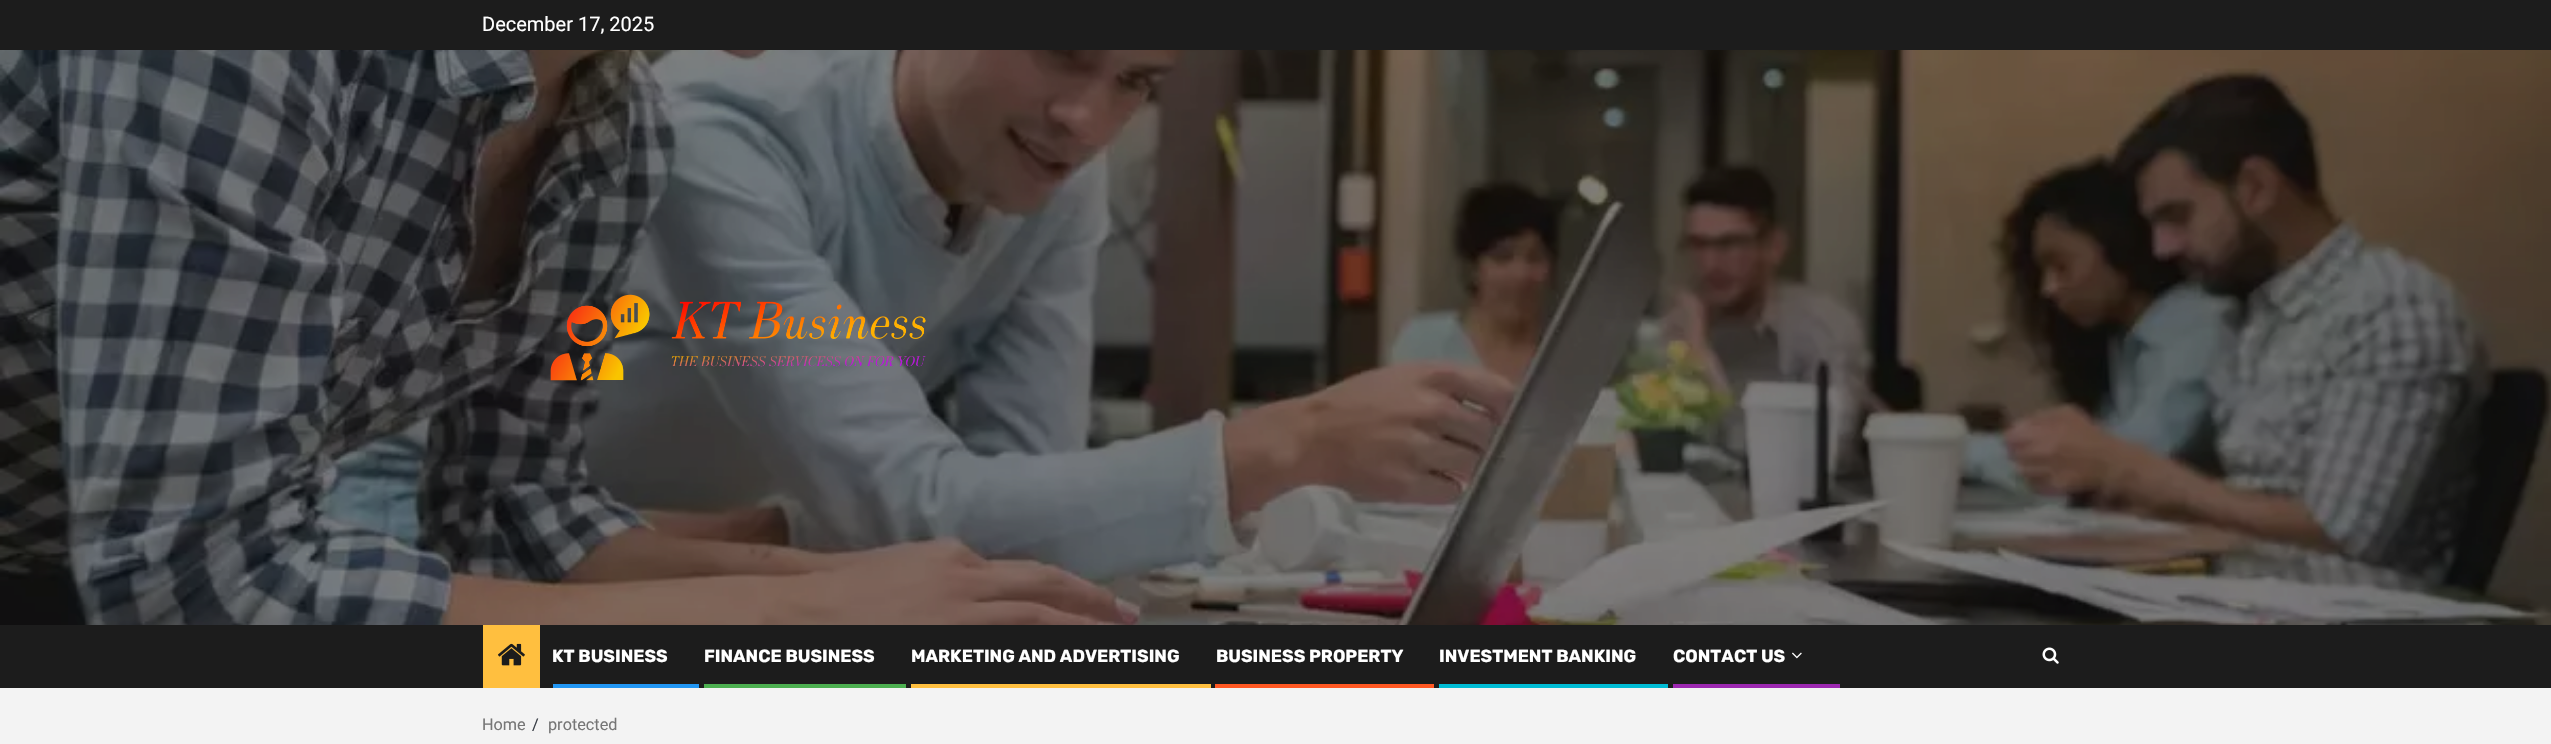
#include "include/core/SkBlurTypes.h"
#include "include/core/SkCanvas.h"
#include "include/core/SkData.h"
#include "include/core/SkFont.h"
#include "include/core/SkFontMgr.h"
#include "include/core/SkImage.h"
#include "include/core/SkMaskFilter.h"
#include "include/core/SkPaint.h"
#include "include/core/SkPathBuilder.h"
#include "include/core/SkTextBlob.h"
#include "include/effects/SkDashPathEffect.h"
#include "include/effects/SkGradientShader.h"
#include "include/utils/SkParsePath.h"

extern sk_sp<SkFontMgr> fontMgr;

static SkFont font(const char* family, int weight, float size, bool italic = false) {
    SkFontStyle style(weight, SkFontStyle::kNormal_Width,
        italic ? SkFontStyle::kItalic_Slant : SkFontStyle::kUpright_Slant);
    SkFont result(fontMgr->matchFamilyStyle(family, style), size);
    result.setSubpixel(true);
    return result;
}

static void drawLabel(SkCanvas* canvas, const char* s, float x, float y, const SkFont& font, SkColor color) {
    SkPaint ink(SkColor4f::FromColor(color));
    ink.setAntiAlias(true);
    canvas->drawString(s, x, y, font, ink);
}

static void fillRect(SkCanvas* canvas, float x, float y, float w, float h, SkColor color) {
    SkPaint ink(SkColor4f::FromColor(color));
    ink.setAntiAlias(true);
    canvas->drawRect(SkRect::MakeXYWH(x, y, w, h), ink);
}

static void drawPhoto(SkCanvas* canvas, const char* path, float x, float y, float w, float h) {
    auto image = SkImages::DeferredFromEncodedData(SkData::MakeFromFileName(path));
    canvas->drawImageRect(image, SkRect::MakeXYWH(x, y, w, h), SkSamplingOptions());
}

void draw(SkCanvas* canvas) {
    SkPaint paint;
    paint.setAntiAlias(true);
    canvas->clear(0xFFF3F3F3);
    fillRect(canvas, 0, 0, 2551, 50, 0xFF1C1C1C);
    SkFont font1 = font("Roboto", 400, 20);
    drawLabel(canvas, "December 17, 2025", 482, 31, font1, 0xFFFFFFFF);
    drawPhoto(canvas, "assets/img1.png", 0, 50, 2551, 575);
    drawPhoto(canvas, "assets/img2.png", 550, 294, 376, 87);
    fillRect(canvas, 0, 625, 2551, 63, 0xFF1C1C1C);
    fillRect(canvas, 483, 625, 57, 63, 0xFFFFBF3F);
    drawPhoto(canvas, "assets/img3.png", 498, 643, 27, 23);
    SkFont font2 = font("Rubik", 700, 17.5f);
    drawLabel(canvas, "KT BUSINESS", 552, 662, font2, 0xFFFFFFFF);
    fillRect(canvas, 553, 684, 146, 4, 0xFF2196F3);
    drawLabel(canvas, "FINANCE BUSINESS", 704, 662, font2, 0xFFFFFFFF);
    fillRect(canvas, 704, 684, 202, 4, 0xFF4CAF50);
    drawLabel(canvas, "MARKETING AND ADVERTISING", 911, 662, font2, 0xFFFFFFFF);
    fillRect(canvas, 911, 684, 300, 4, 0xFFFFBF3F);
    drawLabel(canvas, "BUSINESS PROPERTY", 1216, 662, font2, 0xFFFFFFFF);
    fillRect(canvas, 1215, 684, 219, 4, 0xFFFF5722);
    drawLabel(canvas, "INVESTMENT BANKING", 1439, 662, font2, 0xFFFFFFFF);
    fillRect(canvas, 1439, 684, 229, 4, 0xFF00BCD4);
    drawLabel(canvas, "CONTACT US", 1673, 662, font2, 0xFFFFFFFF);
    drawPhoto(canvas, "assets/img4.png", 1792, 652, 10, 7);
    fillRect(canvas, 1673, 684, 167, 4, 0xFF9C27B0);
    drawPhoto(canvas, "assets/img5.png", 2042, 647, 17, 17);
    SkFont font3 = font("Roboto", 400, 16.25f);
    drawLabel(canvas, "Home", 482, 730, font3, 0xFF767676);
    drawLabel(canvas, "/", 532, 730, font3, 0xFF393E46);
    drawLabel(canvas, "protected", 548, 730, font3, 0xFF767676);
}
